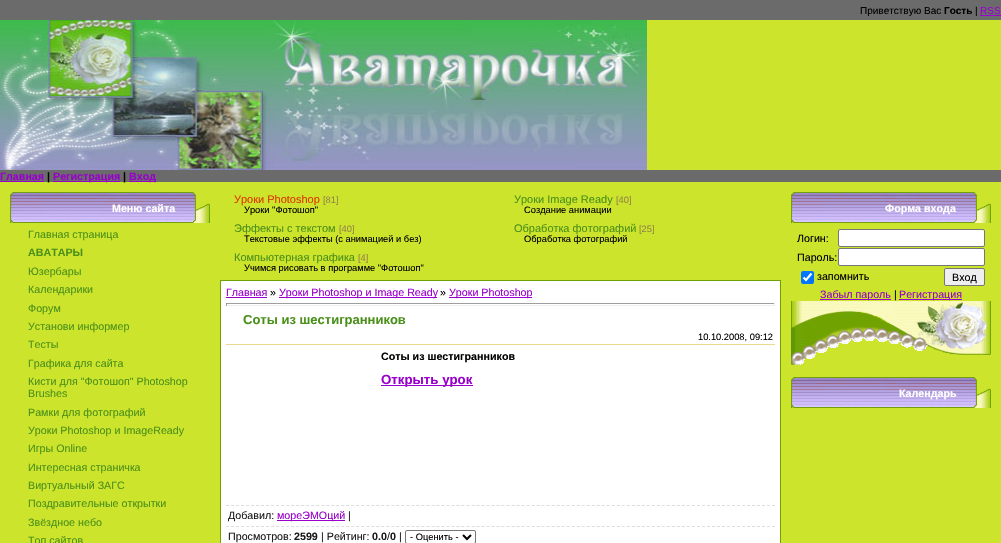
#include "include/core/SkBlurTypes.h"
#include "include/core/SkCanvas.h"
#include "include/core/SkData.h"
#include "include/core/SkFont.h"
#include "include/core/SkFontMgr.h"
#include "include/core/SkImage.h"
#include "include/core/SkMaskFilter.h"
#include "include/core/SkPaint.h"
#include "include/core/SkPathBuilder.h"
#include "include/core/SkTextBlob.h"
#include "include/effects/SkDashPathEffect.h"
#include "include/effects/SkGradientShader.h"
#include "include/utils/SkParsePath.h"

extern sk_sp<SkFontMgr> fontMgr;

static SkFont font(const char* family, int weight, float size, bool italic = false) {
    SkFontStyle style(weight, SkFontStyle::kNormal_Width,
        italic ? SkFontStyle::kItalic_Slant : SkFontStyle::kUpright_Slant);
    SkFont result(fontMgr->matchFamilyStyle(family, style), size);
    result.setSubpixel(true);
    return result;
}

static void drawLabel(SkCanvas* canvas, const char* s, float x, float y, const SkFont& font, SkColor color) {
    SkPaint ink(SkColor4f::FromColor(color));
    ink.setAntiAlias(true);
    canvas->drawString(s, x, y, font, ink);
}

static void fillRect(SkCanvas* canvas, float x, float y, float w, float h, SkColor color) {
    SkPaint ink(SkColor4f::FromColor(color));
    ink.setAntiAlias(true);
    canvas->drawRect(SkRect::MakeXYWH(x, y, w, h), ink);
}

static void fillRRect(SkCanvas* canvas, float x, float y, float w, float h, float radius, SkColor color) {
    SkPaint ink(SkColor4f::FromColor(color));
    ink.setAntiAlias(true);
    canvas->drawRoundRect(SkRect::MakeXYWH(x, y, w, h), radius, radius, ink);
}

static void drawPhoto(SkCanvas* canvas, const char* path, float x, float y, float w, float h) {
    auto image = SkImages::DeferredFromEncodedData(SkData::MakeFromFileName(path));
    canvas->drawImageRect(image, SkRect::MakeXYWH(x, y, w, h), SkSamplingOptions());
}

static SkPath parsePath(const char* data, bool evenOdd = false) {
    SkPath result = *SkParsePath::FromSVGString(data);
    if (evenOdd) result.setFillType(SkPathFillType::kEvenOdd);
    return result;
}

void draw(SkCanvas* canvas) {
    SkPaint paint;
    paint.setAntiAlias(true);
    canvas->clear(0xFFCCE42C);
    fillRect(canvas, 0, 0, 1001, 20, 0xFF6B6B6B);
    SkFont font1 = font("Liberation Sans", 400, 10);
    drawLabel(canvas, "Приветствую Вас", 860, 14, font1, 0xFF000000);
    SkFont font2 = font("Liberation Sans", 700, 10);
    drawLabel(canvas, "Гость", 944, 14, font2, 0xFF000000);
    drawLabel(canvas, "|", 975, 14, font1, 0xFF000000);
    drawLabel(canvas, "RSS", 980, 14, font1, 0xFF9900CC);
    fillRect(canvas, 980, 15, 21, 1, 0xFF9900CC);
    drawPhoto(canvas, "assets/img1.png", 0, 20, 647, 150);
    fillRect(canvas, 0, 170, 1001, 12, 0xFF6B6B6B);
    SkFont font3 = font("Liberation Sans", 700, 10.7f);
    drawLabel(canvas, "Главная", 0, 180, font3, 0xFF9900CC);
    fillRect(canvas, 0, 181, 44, 1, 0xFF9900CC);
    drawLabel(canvas, "|", 47, 180, font3, 0xFF000000);
    fillRect(canvas, 53, 181, 67, 1, 0xFF9900CC);
    drawLabel(canvas, "Регистрация", 53, 180, font3, 0xFF9900CC);
    drawLabel(canvas, "|", 123, 180, font3, 0xFF000000);
    fillRect(canvas, 129, 181, 27, 1, 0xFF9900CC);
    drawLabel(canvas, "Вход", 129, 180, font3, 0xFF9900CC);
    drawPhoto(canvas, "assets/img2.png", 10, 192, 200, 31);
    drawLabel(canvas, "Меню сайта", 112, 212, font3, 0xFFFFFFFF);
    SkFont font4 = font("Liberation Sans", 400, 10.7f);
    drawLabel(canvas, "Главная страница", 28, 238, font4, 0xFF4B901A);
    drawLabel(canvas, "АВАТАРЫ", 28, 256, font3, 0xFF4B901A);
    drawLabel(canvas, "Юзербары", 28, 275, font4, 0xFF4B901A);
    drawLabel(canvas, "Календарики", 28, 293, font4, 0xFF4B901A);
    drawLabel(canvas, "Форум", 28, 312, font4, 0xFF4B901A);
    drawLabel(canvas, "Установи информер", 28, 330, font4, 0xFF4B901A);
    drawLabel(canvas, "Тесты", 28, 348, font4, 0xFF4B901A);
    drawLabel(canvas, "Графика для сайта", 28, 367, font4, 0xFF4B901A);
    drawLabel(canvas, "Кисти для \"Фотошоп\" Photoshop", 28, 385, font4, 0xFF4B901A);
    drawLabel(canvas, "Brushes", 28, 397, font4, 0xFF4B901A);
    drawLabel(canvas, "Рамки для фотографий", 28, 416, font4, 0xFF4B901A);
    drawLabel(canvas, "Уроки Photoshop и ImageReady", 28, 434, font4, 0xFF4B901A);
    drawLabel(canvas, "Игры Online", 28, 452, font4, 0xFF4B901A);
    drawLabel(canvas, "Интересная страничка", 28, 471, font4, 0xFF4B901A);
    drawLabel(canvas, "Виртуальный ЗАГС", 28, 489, font4, 0xFF4B901A);
    drawLabel(canvas, "Поздравительные открытки", 28, 507, font4, 0xFF4B901A);
    drawLabel(canvas, "Звёздное небо", 28, 526, font4, 0xFF4B901A);
    drawLabel(canvas, "Топ сайтов", 28, 544, font4, 0xFF4B901A);
    SkFont font5 = font("Liberation Sans", 400, 11);
    drawLabel(canvas, "Уроки Photoshop", 234, 203, font5, 0xFFDC3700);
    SkFont font6 = font("Liberation Sans", 400, 9.3f);
    drawLabel(canvas, "[81]", 323, 203, font6, 0xFF948549);
    drawLabel(canvas, "Уроки \"Фотошоп\"", 244, 213, font6, 0xFF000000);
    drawLabel(canvas, "Уроки Image Ready", 514, 203, font5, 0xFF4B901A);
    drawLabel(canvas, "[40]", 616, 203, font6, 0xFF948549);
    drawLabel(canvas, "Создание анимации", 524, 213, font6, 0xFF000000);
    drawLabel(canvas, "Эффекты с текстом", 234, 232, font5, 0xFF4B901A);
    drawLabel(canvas, "[40]", 339, 232, font6, 0xFF948549);
    drawLabel(canvas, "Текстовые эффекты (с анимацией и без)", 244, 242, font6, 0xFF000000);
    drawLabel(canvas, "Обработка фотографий", 514, 232, font5, 0xFF4B901A);
    drawLabel(canvas, "[25]", 639, 232, font6, 0xFF948549);
    drawLabel(canvas, "Обработка фотографий", 524, 242, font6, 0xFF000000);
    drawLabel(canvas, "Компьютерная графика", 234, 261, font5, 0xFF4B901A);
    drawLabel(canvas, "[4]", 358, 261, font6, 0xFF948549);
    drawLabel(canvas, "Учимся рисовать в программе \"Фотошоп\"", 244, 271, font6, 0xFF000000);
    paint.setStroke(true);
    paint.setStrokeWidth(1);
    paint.setColor(0xFF6DA104);
    canvas->drawRect(SkRect::MakeXYWH(220.5f, 280.5f, 560, 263), paint);
    fillRect(canvas, 221, 281, 559, 262, 0xFFFFFFFF);
    drawLabel(canvas, "Главная", 226, 296, font4, 0xFF9900CC);
    fillRect(canvas, 226, 297, 41, 1, 0xFF9900CC);
    drawLabel(canvas, "»", 270, 296, font4, 0xFF000000);
    fillRect(canvas, 279, 297, 158, 1, 0xFF9900CC);
    drawLabel(canvas, "Уроки Photoshop и Image Ready", 279, 296, font4, 0xFF9900CC);
    drawLabel(canvas, "»", 440, 296, font4, 0xFF000000);
    fillRect(canvas, 449, 297, 83, 1, 0xFF9900CC);
    drawLabel(canvas, "Уроки Photoshop", 449, 296, font4, 0xFF9900CC);
    fillRect(canvas, 226, 303, 549, 1, 0xFF9F9F9F);
    fillRect(canvas, 774, 303, 1, 3, 0xFFEEEEEE);
    fillRect(canvas, 226, 305, 549, 1, 0xFFEEEEEE);
    fillRect(canvas, 226, 303, 1, 3, 0xFF9F9F9F);
    SkFont font7 = font("Liberation Sans", 700, 13);
    drawLabel(canvas, "Соты из шестигранников", 243, 324, font7, 0xFF4B901A);
    drawLabel(canvas, "10.10.2008, 09:12", 698, 340, font6, 0xFF000000);
    fillRect(canvas, 226, 344, 549, 1, 0xFFEBD98E);
    drawLabel(canvas, "Соты из шестигранников", 381, 360, font3, 0xFF000000);
    fillRect(canvas, 381, 385, 92, 1, 0xFF9900CC);
    SkFont font8 = font("Liberation Sans", 700, 13.25f);
    drawLabel(canvas, "Открыть урок", 381, 384, font8, 0xFF9900CC);
    paint.setColor(0xFFDDDDDD);
    paint.setPathEffect(SkDashPathEffect::Make({{3, 2.01f}}, 0));
    canvas->drawPath(parsePath("M226 505.5H775"), paint);
    paint.setPathEffect(nullptr);
    paint.setPathEffect(SkDashPathEffect::Make({{3, 2.01f}}, 0));
    canvas->drawPath(parsePath("M226 526.5H775"), paint);
    paint.setPathEffect(nullptr);
    drawLabel(canvas, "Добавил:", 228, 519, font4, 0xFF1A1A1A);
    fillRect(canvas, 277, 520, 68, 1, 0xFF9900CC);
    drawLabel(canvas, "мореЭМОций", 277, 519, font4, 0xFF9900CC);
    drawLabel(canvas, "|", 348, 519, font4, 0xFF1A1A1A);
    drawLabel(canvas, "Просмотров:", 228, 540, font4, 0xFF1A1A1A);
    drawLabel(canvas, "2599", 294, 540, font3, 0xFF1A1A1A);
    drawLabel(canvas, "| Рейтинг:", 321, 540, font4, 0xFF1A1A1A);
    drawLabel(canvas, "0.0", 372, 540, font3, 0xFF1A1A1A);
    drawLabel(canvas, "/", 387, 540, font4, 0xFF1A1A1A);
    drawLabel(canvas, "0", 390, 540, font3, 0xFF1A1A1A);
    drawLabel(canvas, "|", 399, 540, font4, 0xFF1A1A1A);
    paint.setColor(0xFF767676);
    canvas->drawRoundRect(SkRect::MakeXYWH(405.5f, 530.5f, 70, 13), 1.5f, 1.5f, paint);
    paint.setStrokeWidth(2);
    paint.setColor(0xFF000000);
    canvas->drawPath(parsePath("M463 535L467 539L471 535"), paint);
    drawLabel(canvas, "- Оценить -", 410, 540, font6, 0xFF000000);
    drawPhoto(canvas, "assets/img2.png", 791, 192, 200, 31);
    drawLabel(canvas, "Форма входа", 885, 212, font3, 0xFFFFFFFF);
    drawLabel(canvas, "Логин:", 797, 242, font4, 0xFF000000);
    paint.setStroke(false);
    paint.setColor(0xFFFFFFFF);
    canvas->drawRoundRect(SkRect::MakeXYWH(838.5f, 229.5f, 146, 17), 1.5f, 1.5f, paint);
    paint.setStroke(true);
    paint.setStrokeWidth(1);
    paint.setColor(0xFF767676);
    canvas->drawRoundRect(SkRect::MakeXYWH(838.5f, 229.5f, 146, 17), 1.5f, 1.5f, paint);
    drawLabel(canvas, "Пароль:", 797, 261, font4, 0xFF000000);
    paint.setStroke(false);
    paint.setColor(0xFFFFFFFF);
    canvas->drawRoundRect(SkRect::MakeXYWH(838.5f, 248.5f, 146, 17), 1.5f, 1.5f, paint);
    paint.setStroke(true);
    paint.setColor(0xFF767676);
    canvas->drawRoundRect(SkRect::MakeXYWH(838.5f, 248.5f, 146, 17), 1.5f, 1.5f, paint);
    fillRRect(canvas, 801, 271, 13, 13, 2, 0xFF0075FF);
    paint.setStrokeWidth(2.1f);
    paint.setColor(0xFFFFFFFF);
    canvas->drawPath(parsePath("M803.5 277.5L806 280L811.5 273.5"), paint);
    drawLabel(canvas, "запомнить", 817, 280, font4, 0xFF000000);
    paint.setStroke(false);
    paint.setColor(0xFFEFEFEF);
    canvas->drawRoundRect(SkRect::MakeXYWH(944.5f, 268.5f, 40, 17), 1.5f, 1.5f, paint);
    paint.setStroke(true);
    paint.setStrokeWidth(1);
    paint.setColor(0xFF767676);
    canvas->drawRoundRect(SkRect::MakeXYWH(944.5f, 268.5f, 40, 17), 1.5f, 1.5f, paint);
    drawLabel(canvas, "Вход", 952, 281, font4, 0xFF000000);
    fillRect(canvas, 820, 299, 71, 1, 0xFF9900CC);
    drawLabel(canvas, "Забыл пароль", 820, 298, font4, 0xFF9900CC);
    drawLabel(canvas, "|", 894, 298, font4, 0xFF000000);
    fillRect(canvas, 899, 299, 63, 1, 0xFF9900CC);
    drawLabel(canvas, "Регистрация", 899, 298, font4, 0xFF9900CC);
    drawPhoto(canvas, "assets/img3.png", 791, 301, 200, 64);
    drawPhoto(canvas, "assets/img2.png", 791, 377, 200, 31);
    drawLabel(canvas, "Календарь", 899, 397, font3, 0xFFFFFFFF);
}
